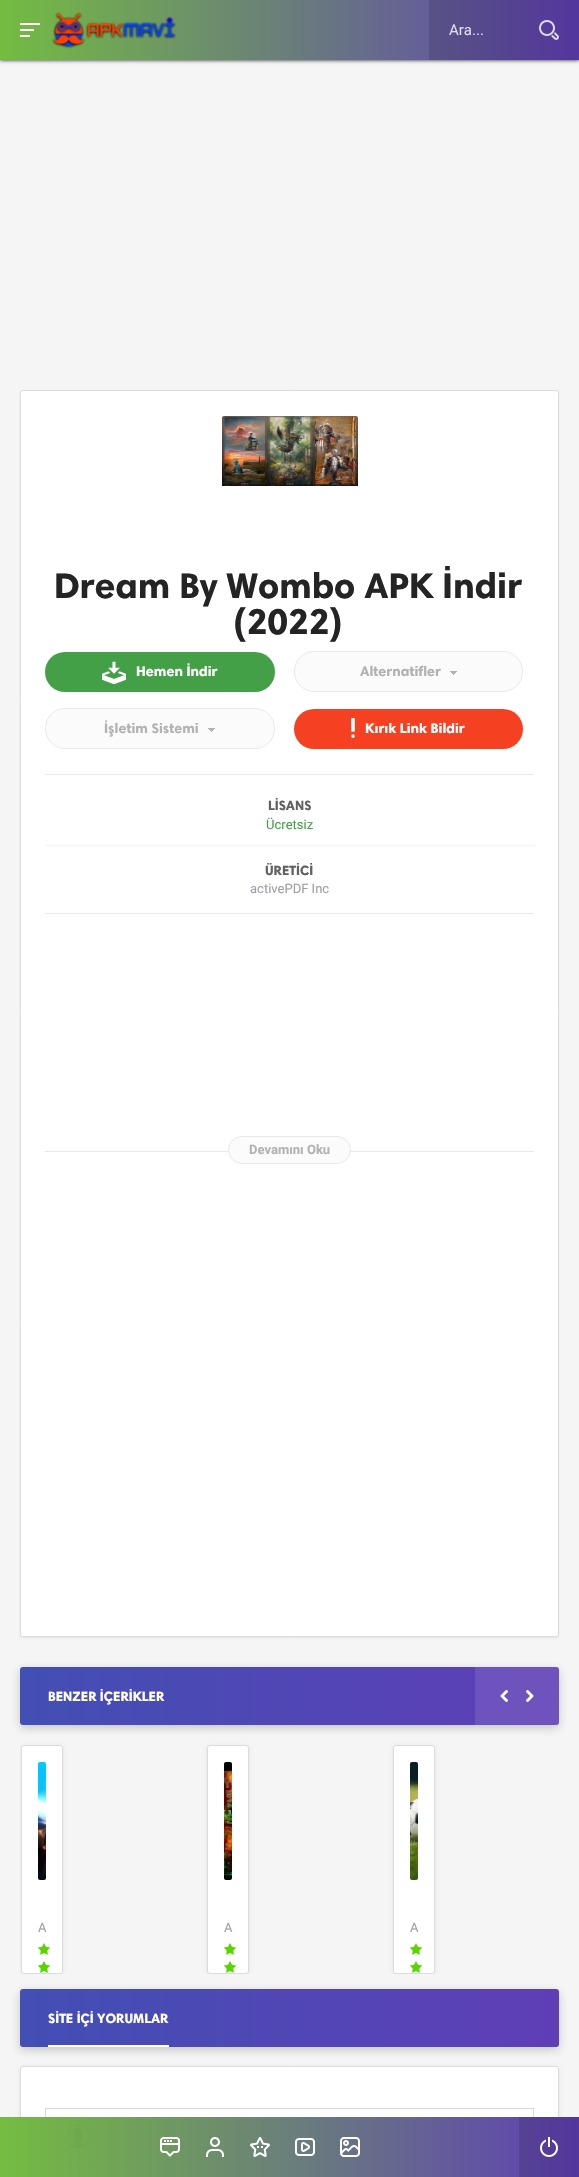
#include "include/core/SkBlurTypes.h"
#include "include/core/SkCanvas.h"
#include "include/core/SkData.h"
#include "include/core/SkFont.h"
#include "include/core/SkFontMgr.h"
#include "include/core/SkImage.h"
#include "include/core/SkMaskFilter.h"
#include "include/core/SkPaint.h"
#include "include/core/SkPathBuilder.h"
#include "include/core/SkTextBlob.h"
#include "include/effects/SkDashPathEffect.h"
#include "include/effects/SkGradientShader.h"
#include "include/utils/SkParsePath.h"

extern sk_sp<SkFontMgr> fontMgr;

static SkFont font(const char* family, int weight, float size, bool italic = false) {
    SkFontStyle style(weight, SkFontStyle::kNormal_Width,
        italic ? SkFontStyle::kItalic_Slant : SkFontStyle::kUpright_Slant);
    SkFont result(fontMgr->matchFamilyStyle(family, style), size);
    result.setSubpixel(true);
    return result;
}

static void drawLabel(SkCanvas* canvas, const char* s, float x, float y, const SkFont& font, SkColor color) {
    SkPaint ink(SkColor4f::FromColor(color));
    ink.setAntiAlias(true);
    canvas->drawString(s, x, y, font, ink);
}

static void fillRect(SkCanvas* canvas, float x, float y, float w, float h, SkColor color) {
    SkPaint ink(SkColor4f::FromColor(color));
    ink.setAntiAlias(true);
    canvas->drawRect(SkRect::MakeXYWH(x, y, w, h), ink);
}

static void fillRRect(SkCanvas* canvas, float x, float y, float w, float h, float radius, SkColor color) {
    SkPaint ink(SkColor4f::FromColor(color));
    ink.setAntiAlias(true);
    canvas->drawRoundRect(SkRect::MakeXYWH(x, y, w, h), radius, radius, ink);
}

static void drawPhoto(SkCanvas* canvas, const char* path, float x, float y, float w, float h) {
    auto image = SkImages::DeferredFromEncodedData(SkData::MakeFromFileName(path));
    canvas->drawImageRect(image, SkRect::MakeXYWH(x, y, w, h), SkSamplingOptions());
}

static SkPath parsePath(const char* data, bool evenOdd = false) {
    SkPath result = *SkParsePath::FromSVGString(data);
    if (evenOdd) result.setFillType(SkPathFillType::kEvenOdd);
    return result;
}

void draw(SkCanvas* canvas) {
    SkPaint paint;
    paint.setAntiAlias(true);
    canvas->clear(0xFFF5F5F5);
    paint.setColor(0xFF111519);
    paint.setMaskFilter(SkMaskFilter::MakeBlur(kNormal_SkBlurStyle, 2));
    canvas->drawRect(SkRect::MakeXYWH(0, 0, 579, 60), paint);
    paint.setMaskFilter(nullptr);
    {
        const SkColor colors[] = {0xFF65A439, 0xFF53369E};
        const float stops[] = {0, 1};
        const SkPoint ends[] = {{0, 30}, {579, 30}};
        paint.setShader(SkGradientShader::MakeLinear(ends, colors, stops, 2, SkTileMode::kClamp));
        paint.setAlpha(255);
    }
    canvas->drawRect(SkRect::MakeXYWH(429, 0, 150, 60), paint);
    SkFont font1 = font("Roboto", 400, 15);
    drawLabel(canvas, "Ara...", 449, 35, font1, 0xFFDDDBE8);
    drawPhoto(canvas, "assets/img1.png", 539, 20, 20, 20);
    {
        const SkColor colors[] = {0xFF74BC41, 0xFF5F3EB6};
        const float stops[] = {0, 1};
        const SkPoint ends[] = {{0, 30}, {579, 30}};
        paint.setShader(SkGradientShader::MakeLinear(ends, colors, stops, 2, SkTileMode::kClamp));
        paint.setAlpha(255);
    }
    canvas->drawRect(SkRect::MakeXYWH(0, 0, 429, 60), paint);
    fillRect(canvas, 20, 29, 14, 2, 0xFFFFFFFF);
    fillRect(canvas, 20, 23, 20, 2, 0xFFFFFFFF);
    fillRect(canvas, 20, 35, 10, 2, 0xFFFFFFFF);
    drawPhoto(canvas, "assets/img2.png", 51, 12, 125, 37);
    paint.setShader(nullptr);
    paint.setColor(0x12000000);
    paint.setMaskFilter(SkMaskFilter::MakeBlur(kNormal_SkBlurStyle, 1));
    canvas->drawRoundRect(SkRect::MakeXYWH(20, 391, 539, 1247), 3, 3, paint);
    paint.setMaskFilter(nullptr);
    paint.setColor(0xFFFFFFFF);
    canvas->drawRoundRect(SkRect::MakeXYWH(20.5f, 390.5f, 538, 1246), 2.5f, 2.5f, paint);
    paint.setStroke(true);
    paint.setStrokeWidth(1);
    paint.setColor(0xFFDCDCDC);
    canvas->drawRoundRect(SkRect::MakeXYWH(20.5f, 390.5f, 538, 1246), 2.5f, 2.5f, paint);
    fillRect(canvas, 45, 774, 489, 1, 0xFFE9E9E9);
    drawPhoto(canvas, "assets/img3.png", 222, 416, 136, 70);
    SkFont font2 = font("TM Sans", 700, 36);
    drawLabel(canvas, "Dream By Wombo APK İndir", 54, 598, font2, 0xFF242424);
    drawLabel(canvas, "(2022)", 233, 634, font2, 0xFF242424);
    fillRRect(canvas, 45, 652, 230, 40, 20, 0xFF43A046);
    drawPhoto(canvas, "assets/img4.png", 102, 661, 24, 23);
    SkFont font3 = font("TM Sans", 700, 14);
    drawLabel(canvas, "Hemen İndir", 136, 676, font3, 0xFFFFFFFF);
    paint.setStroke(false);
    paint.setColor(0xFFFBFBFB);
    canvas->drawRoundRect(SkRect::MakeXYWH(294.5f, 651.5f, 228, 40), 19.5f, 19.5f, paint);
    paint.setStroke(true);
    paint.setColor(0xFFE9E9E9);
    canvas->drawRoundRect(SkRect::MakeXYWH(294.5f, 651.5f, 228, 40), 19.5f, 19.5f, paint);
    drawLabel(canvas, "Alternatifler", 360, 676, font3, 0xFFB2B2B2);
    drawPhoto(canvas, "assets/img5.png", 450, 671, 7, 4);
    paint.setStroke(false);
    paint.setColor(0xFFFBFBFB);
    canvas->drawRoundRect(SkRect::MakeXYWH(45.5f, 708.5f, 229, 40), 19.5f, 19.5f, paint);
    paint.setStroke(true);
    paint.setColor(0xFFE9E9E9);
    canvas->drawRoundRect(SkRect::MakeXYWH(45.5f, 708.5f, 229, 40), 19.5f, 19.5f, paint);
    drawLabel(canvas, "İşletim Sistemi", 104, 733, font3, 0xFFB2B2B2);
    drawPhoto(canvas, "assets/img5.png", 208, 728, 7, 4);
    fillRRect(canvas, 294, 709, 229, 40, 20, 0xFFF54022);
    drawPhoto(canvas, "assets/img6.png", 351, 718, 4, 20);
    drawLabel(canvas, "Kırık Link Bildir", 365, 733, font3, 0xFFFFFFFF);
    fillRect(canvas, 45, 913, 489, 1, 0xFFE9E9E9);
    fillRect(canvas, 45, 845, 489, 1, 0xFFFBF3F3);
    SkFont font4 = font("TM Sans", 700, 13.5f);
    drawLabel(canvas, "LİSANS", 268, 810, font4, 0xFF616161);
    SkFont font5 = font("Roboto", 400, 13);
    drawLabel(canvas, "Ücretsiz", 266, 829, font5, 0xFF43A147);
    drawLabel(canvas, "ÜRETİCİ", 265, 875, font4, 0xFF616161);
    drawLabel(canvas, "activePDF Inc", 250, 893, font5, 0xFF9DA0A7);
    fillRect(canvas, 45, 1151, 489, 1, 0xFFE9E9E9);
    paint.setStroke(false);
    paint.setColor(0xFFFBFBFB);
    canvas->drawRoundRect(SkRect::MakeXYWH(228.5f, 1136.5f, 122, 27), 13.5f, 13.5f, paint);
    paint.setStroke(true);
    paint.setColor(0xFFE9E9E9);
    canvas->drawRoundRect(SkRect::MakeXYWH(228.5f, 1136.5f, 122, 27), 13.5f, 13.5f, paint);
    SkFont font6 = font("Roboto", 700, 13);
    drawLabel(canvas, "Devamını Oku", 249, 1154, font6, 0xFFB2B2B2);
    paint.setStroke(false);
    paint.setColor(0x36111519);
    paint.setMaskFilter(SkMaskFilter::MakeBlur(kNormal_SkBlurStyle, 5));
    canvas->drawRoundRect(SkRect::MakeXYWH(20, 1670, 539, 58), 3, 3, paint);
    paint.setMaskFilter(nullptr);
    {
        const SkColor colors[] = {0xFF424FB5, 0xFF5F3EB6};
        const float stops[] = {0, 1};
        const SkPoint ends[] = {{20, 1696}, {559, 1696}};
        paint.setShader(SkGradientShader::MakeLinear(ends, colors, stops, 2, SkTileMode::kClamp));
        paint.setAlpha(255);
    }
    canvas->drawRoundRect(SkRect::MakeXYWH(20, 1667, 539, 58), 3, 3, paint);
    drawLabel(canvas, "BENZER İÇERİKLER", 48, 1701, font4, 0xFFFFFFFF);
    fillRect(canvas, 475, 1667, 42, 58, 0xFF6C53BD);
    drawPhoto(canvas, "assets/img7.png", 500, 1690, 8, 12);
    paint.setShader(nullptr);
    paint.setColor(0x1AFFFFFF);
    canvas->drawPath(parsePath("M517 1667H556C557.5 1667 559 1668.5 559 1670V1722C559 1723.5 557.5 1725 556 1725H517Z"), paint);
    drawPhoto(canvas, "assets/img8.png", 526, 1690, 8, 12);
    canvas->save();
    canvas->clipRect(SkRect::MakeXYWH(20, 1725, 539, 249));
    paint.setColor(0x12000000);
    paint.setMaskFilter(SkMaskFilter::MakeBlur(kNormal_SkBlurStyle, 2));
    canvas->drawRoundRect(SkRect::MakeXYWH(21, 1746, 42, 229), 3, 3, paint);
    paint.setMaskFilter(nullptr);
    canvas->restore();
    paint.setColor(0xFFFFFFFF);
    canvas->drawRoundRect(SkRect::MakeXYWH(21.5f, 1745.5f, 41, 228), 2.5f, 2.5f, paint);
    paint.setStroke(true);
    paint.setColor(0xFFDCDCDC);
    canvas->drawRoundRect(SkRect::MakeXYWH(21.5f, 1745.5f, 41, 228), 2.5f, 2.5f, paint);
    drawPhoto(canvas, "assets/img9.png", 38, 1762, 8, 118);
    drawLabel(canvas, "A", 38, 1932, font5, 0xFF9DA0A7);
    drawPhoto(canvas, "assets/img10.png", 38, 1943, 12, 12);
    drawPhoto(canvas, "assets/img10.png", 38, 1961, 12, 12);
    canvas->save();
    canvas->clipRect(SkRect::MakeXYWH(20, 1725, 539, 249));
    paint.setStroke(false);
    paint.setColor(0x12000000);
    paint.setMaskFilter(SkMaskFilter::MakeBlur(kNormal_SkBlurStyle, 2));
    canvas->drawRoundRect(SkRect::MakeXYWH(207, 1746, 42, 229), 3, 3, paint);
    paint.setMaskFilter(nullptr);
    canvas->restore();
    paint.setColor(0xFFFFFFFF);
    canvas->drawRoundRect(SkRect::MakeXYWH(207.5f, 1745.5f, 41, 228), 2.5f, 2.5f, paint);
    paint.setStroke(true);
    paint.setColor(0xFFDCDCDC);
    canvas->drawRoundRect(SkRect::MakeXYWH(207.5f, 1745.5f, 41, 228), 2.5f, 2.5f, paint);
    drawPhoto(canvas, "assets/img11.png", 224, 1762, 8, 118);
    drawLabel(canvas, "A", 224, 1932, font5, 0xFF9DA0A7);
    drawPhoto(canvas, "assets/img10.png", 224, 1943, 12, 12);
    drawPhoto(canvas, "assets/img10.png", 224, 1961, 12, 12);
    canvas->save();
    canvas->clipRect(SkRect::MakeXYWH(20, 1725, 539, 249));
    paint.setStroke(false);
    paint.setColor(0x12000000);
    paint.setMaskFilter(SkMaskFilter::MakeBlur(kNormal_SkBlurStyle, 2));
    canvas->drawRoundRect(SkRect::MakeXYWH(393, 1746, 42, 229), 3, 3, paint);
    paint.setMaskFilter(nullptr);
    canvas->restore();
    paint.setColor(0xFFFFFFFF);
    canvas->drawRoundRect(SkRect::MakeXYWH(393.5f, 1745.5f, 41, 228), 2.5f, 2.5f, paint);
    paint.setStroke(true);
    paint.setColor(0xFFDCDCDC);
    canvas->drawRoundRect(SkRect::MakeXYWH(393.5f, 1745.5f, 41, 228), 2.5f, 2.5f, paint);
    drawPhoto(canvas, "assets/img12.png", 410, 1762, 8, 118);
    drawLabel(canvas, "A", 410, 1932, font5, 0xFF9DA0A7);
    drawPhoto(canvas, "assets/img10.png", 410, 1943, 12, 12);
    drawPhoto(canvas, "assets/img10.png", 410, 1961, 12, 12);
    paint.setStroke(false);
    paint.setColor(0x36111519);
    paint.setMaskFilter(SkMaskFilter::MakeBlur(kNormal_SkBlurStyle, 5));
    canvas->drawRoundRect(SkRect::MakeXYWH(20, 1992, 539, 58), 3, 3, paint);
    paint.setMaskFilter(nullptr);
    {
        const SkColor colors[] = {0xFF424FB5, 0xFF5F3EB6};
        const float stops[] = {0, 1};
        const SkPoint ends[] = {{20, 2018}, {559, 2018}};
        paint.setShader(SkGradientShader::MakeLinear(ends, colors, stops, 2, SkTileMode::kClamp));
        paint.setAlpha(255);
    }
    canvas->drawRoundRect(SkRect::MakeXYWH(20, 1989, 539, 58), 3, 3, paint);
    drawLabel(canvas, "SİTE İÇİ YORUMLAR", 48, 2023, font4, 0xFFFFFFFF);
    fillRect(canvas, 48, 2045, 121, 2, 0xFFFFFFFF);
    paint.setShader(nullptr);
    paint.setColor(0x12000000);
    paint.setMaskFilter(SkMaskFilter::MakeBlur(kNormal_SkBlurStyle, 2));
    canvas->drawRoundRect(SkRect::MakeXYWH(20, 2067, 539, 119), 3, 3, paint);
    paint.setMaskFilter(nullptr);
    paint.setColor(0xFFFFFFFF);
    canvas->drawRoundRect(SkRect::MakeXYWH(20.5f, 2066.5f, 538, 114), 2.5f, 2.5f, paint);
    paint.setStroke(true);
    paint.setColor(0xFFDCDCDC);
    canvas->drawRoundRect(SkRect::MakeXYWH(20.5f, 2066.5f, 538, 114), 2.5f, 2.5f, paint);
    paint.setColor(0xFFD8D8D8);
    canvas->drawRect(SkRect::MakeXYWH(45.5f, 2108.5f, 488, 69), paint);
    fillRect(canvas, 66, 2165, 428, 1, 0xFFD8D8D8);
    drawPhoto(canvas, "assets/img13.png", 66, 2124, 24, 25);
    paint.setStroke(false);
    {
        const SkColor colors[] = {0xF56FBA39, 0xFF5F3EB6};
        const float stops[] = {0, 1};
        const SkPoint ends[] = {{0, 2147}, {579, 2147}};
        paint.setShader(SkGradientShader::MakeLinear(ends, colors, stops, 2, SkTileMode::kClamp));
        paint.setAlpha(255);
    }
    canvas->drawRect(SkRect::MakeXYWH(0, 2117, 579, 60), paint);
    drawPhoto(canvas, "assets/img14.png", 160, 2137, 20, 20);
    drawPhoto(canvas, "assets/img15.png", 206, 2137, 18, 20);
    drawPhoto(canvas, "assets/img16.png", 250, 2137, 20, 20);
    drawPhoto(canvas, "assets/img17.png", 295, 2138, 20, 18);
    drawPhoto(canvas, "assets/img18.png", 340, 2137, 20, 20);
    fillRect(canvas, 519, 2117, 60, 60, 0x21000000);
    drawPhoto(canvas, "assets/img19.png", 540, 2137, 18, 20);
}
